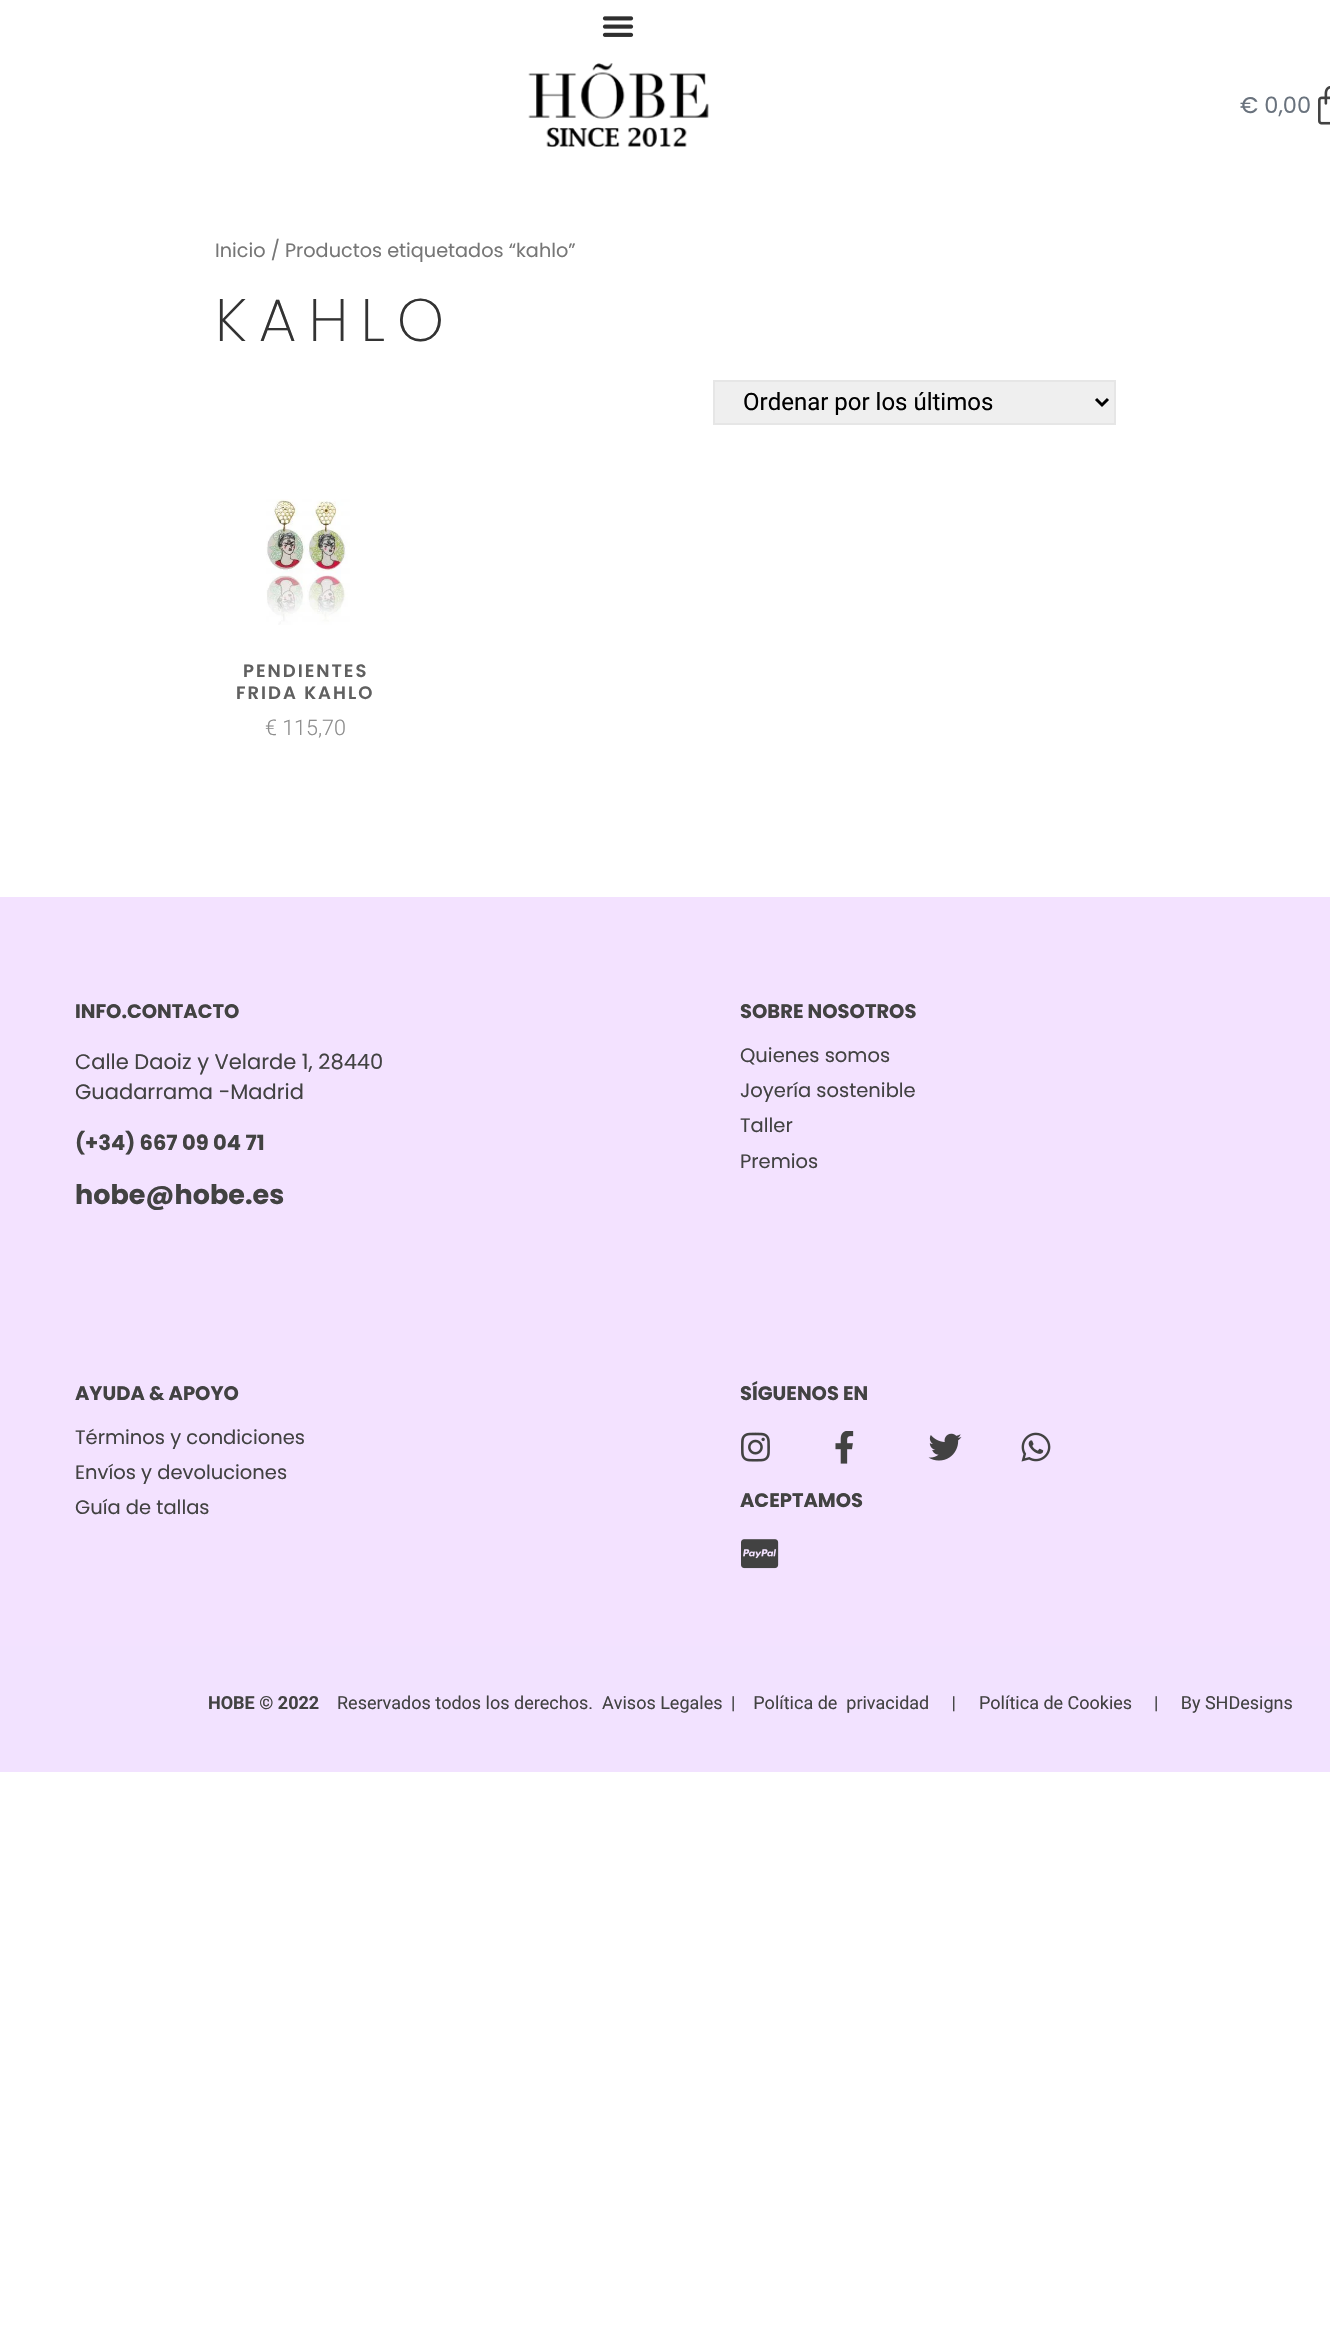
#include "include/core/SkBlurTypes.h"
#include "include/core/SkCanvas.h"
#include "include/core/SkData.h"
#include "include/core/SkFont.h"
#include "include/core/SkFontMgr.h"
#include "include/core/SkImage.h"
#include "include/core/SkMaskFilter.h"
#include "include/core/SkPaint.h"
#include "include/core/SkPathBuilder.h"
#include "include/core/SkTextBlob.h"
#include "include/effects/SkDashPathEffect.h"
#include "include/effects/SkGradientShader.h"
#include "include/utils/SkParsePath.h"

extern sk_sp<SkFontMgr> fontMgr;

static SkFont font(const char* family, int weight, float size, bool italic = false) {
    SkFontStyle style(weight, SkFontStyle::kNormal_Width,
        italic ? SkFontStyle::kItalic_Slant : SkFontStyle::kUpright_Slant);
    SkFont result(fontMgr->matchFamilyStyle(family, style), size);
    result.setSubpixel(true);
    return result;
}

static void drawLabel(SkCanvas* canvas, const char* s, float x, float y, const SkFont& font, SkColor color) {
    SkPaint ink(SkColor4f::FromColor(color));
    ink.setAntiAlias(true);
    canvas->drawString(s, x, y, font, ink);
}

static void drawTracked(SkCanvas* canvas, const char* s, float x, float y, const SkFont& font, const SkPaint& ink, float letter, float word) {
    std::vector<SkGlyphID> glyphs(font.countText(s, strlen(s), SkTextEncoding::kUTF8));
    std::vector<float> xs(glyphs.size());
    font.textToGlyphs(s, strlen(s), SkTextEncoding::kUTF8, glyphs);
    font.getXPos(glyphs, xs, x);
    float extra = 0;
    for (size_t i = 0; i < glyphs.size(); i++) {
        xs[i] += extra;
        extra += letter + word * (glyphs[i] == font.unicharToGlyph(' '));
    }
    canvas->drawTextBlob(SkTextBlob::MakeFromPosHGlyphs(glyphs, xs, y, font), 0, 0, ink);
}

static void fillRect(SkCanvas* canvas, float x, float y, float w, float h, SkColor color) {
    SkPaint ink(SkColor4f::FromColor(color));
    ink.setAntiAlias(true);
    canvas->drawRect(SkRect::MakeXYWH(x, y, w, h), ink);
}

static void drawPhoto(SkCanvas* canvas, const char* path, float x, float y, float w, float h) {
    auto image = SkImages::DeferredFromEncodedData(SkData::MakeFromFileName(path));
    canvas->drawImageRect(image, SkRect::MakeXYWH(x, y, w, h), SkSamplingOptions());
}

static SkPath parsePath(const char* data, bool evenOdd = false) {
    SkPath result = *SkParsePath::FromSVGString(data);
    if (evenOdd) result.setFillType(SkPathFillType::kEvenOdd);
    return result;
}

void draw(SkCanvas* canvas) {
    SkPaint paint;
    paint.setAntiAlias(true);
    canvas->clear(0xFFFFFFFF);
    drawPhoto(canvas, "assets/img1.png", 602, 16, 32, 21);
    drawPhoto(canvas, "assets/img2.png", 528, 63, 181, 84);
    SkFont font1 = font("Poppins", 400, 22.5f);
    drawLabel(canvas, "€ 0,00", 1240, 113, font1, 0xFF69727D);
    drawPhoto(canvas, "assets/img3.png", 1318, 86, 12, 39);
    SkFont font2 = font("Poppins", 400, 19.25f);
    drawLabel(canvas, "Inicio / Productos etiquetados “kahlo”", 215, 257, font2, 0xFF767676);
    SkFont font3 = font("Poppins", 200, 60);
    paint.setColor(0xFF333333);
    drawTracked(canvas, "KAHLO", 215, 341, font3, paint, 12, 0);
    paint.setColor(0xFFEFEFEF);
    canvas->drawRect(SkRect::MakeXYWH(714, 381, 401, 43), paint);
    paint.setStroke(true);
    paint.setStrokeWidth(2);
    paint.setColor(0xFFE6E6E6);
    canvas->drawRect(SkRect::MakeXYWH(714, 381, 401, 43), paint);
    paint.setStrokeWidth(3);
    paint.setColor(0xFF000000);
    canvas->drawPath(parsePath("M1096 399L1102 405L1108 399"), paint);
    SkFont font4 = font("Roboto", 400, 24);
    drawLabel(canvas, "Ordenar por los últimos", 743, 410, font4, 0xFF000000);
    drawPhoto(canvas, "assets/img4.png", 266, 499, 84, 126);
    SkFont font5 = font("Poppins", 600, 18);
    paint.setStroke(false);
    paint.setColor(0xFF606060);
    drawTracked(canvas, "PENDIENTES", 243, 677, font5, paint, 2, 0);
    drawTracked(canvas, "FRIDA KAHLO", 236, 699, font5, paint, 2, 0);
    SkFont font6 = font("Roboto", 300, 21.5f);
    drawLabel(canvas, "€ 115,70", 265, 735, font6, 0xFF8D8D8D);
    fillRect(canvas, 0, 897, 1330, 749, 0xFFF3E2FF);
    SkFont font7 = font("Poppins", 700, 19.5f);
    drawLabel(canvas, "INFO.CONTACTO", 75, 1018, font7, 0xFF424242);
    SkFont font8 = font("Poppins", 400, 21);
    drawLabel(canvas, "Calle Daoiz y Velarde 1, 28440", 75, 1069, font8, 0xFF424242);
    drawLabel(canvas, "Guadarrama -Madrid", 75, 1099, font8, 0xFF424242);
    SkFont font9 = font("Poppins", 700, 21);
    drawLabel(canvas, "(+34) 667 09 04 71", 75, 1150, font9, 0xFF424242);
    SkFont font10 = font("Poppins", 700, 27);
    drawLabel(canvas, "hobe@hobe.es", 75, 1204, font10, 0xFF424242);
    drawLabel(canvas, "SOBRE NOSOTROS", 740, 1018, font7, 0xFF424242);
    SkFont font11 = font("Poppins", 400, 19.5f);
    drawLabel(canvas, "Quienes somos", 740, 1062, font11, 0xFF424242);
    drawLabel(canvas, "Joyería sostenible", 740, 1097, font11, 0xFF424242);
    drawLabel(canvas, "Taller", 740, 1132, font11, 0xFF424242);
    drawLabel(canvas, "Premios", 740, 1168, font11, 0xFF424242);
    drawLabel(canvas, "AYUDA & APOYO", 75, 1400, font7, 0xFF424242);
    drawLabel(canvas, "Términos y condiciones", 75, 1444, font11, 0xFF424242);
    drawLabel(canvas, "Envíos y devoluciones", 75, 1479, font11, 0xFF424242);
    drawLabel(canvas, "Guía de tallas", 75, 1514, font11, 0xFF424242);
    drawLabel(canvas, "SÍGUENOS EN", 740, 1400, font7, 0xFF424242);
    drawPhoto(canvas, "assets/img5.png", 741, 1432, 29, 30);
    drawPhoto(canvas, "assets/img6.png", 835, 1431, 19, 33);
    drawPhoto(canvas, "assets/img7.png", 928, 1433, 34, 28);
    drawPhoto(canvas, "assets/img8.png", 1021, 1432, 30, 30);
    drawLabel(canvas, "ACEPTAMOS", 740, 1507, font7, 0xFF424242);
    drawPhoto(canvas, "assets/img9.png", 741, 1539, 38, 30);
    fillRect(canvas, 0, 1646, 1330, 126, 0xFFF2E2FF);
    SkFont font12 = font("Roboto", 700, 18);
    drawLabel(canvas, "HOBE © 2022", 208, 1709, font12, 0xFF424242);
    SkFont font13 = font("Roboto", 400, 18);
    drawLabel(canvas, "Reservados todos los derechos.", 337, 1709, font13, 0xFF424242);
    drawLabel(canvas, "Avisos Legales", 602, 1709, font13, 0xFF424242);
    drawLabel(canvas, "|    Política de  privacidad     |", 731, 1709, font13, 0xFF424242);
    drawLabel(canvas, "Política de Cookies", 979, 1709, font13, 0xFF424242);
    drawLabel(canvas, "|     By SHDesigns", 1154, 1709, font13, 0xFF424242);
}
